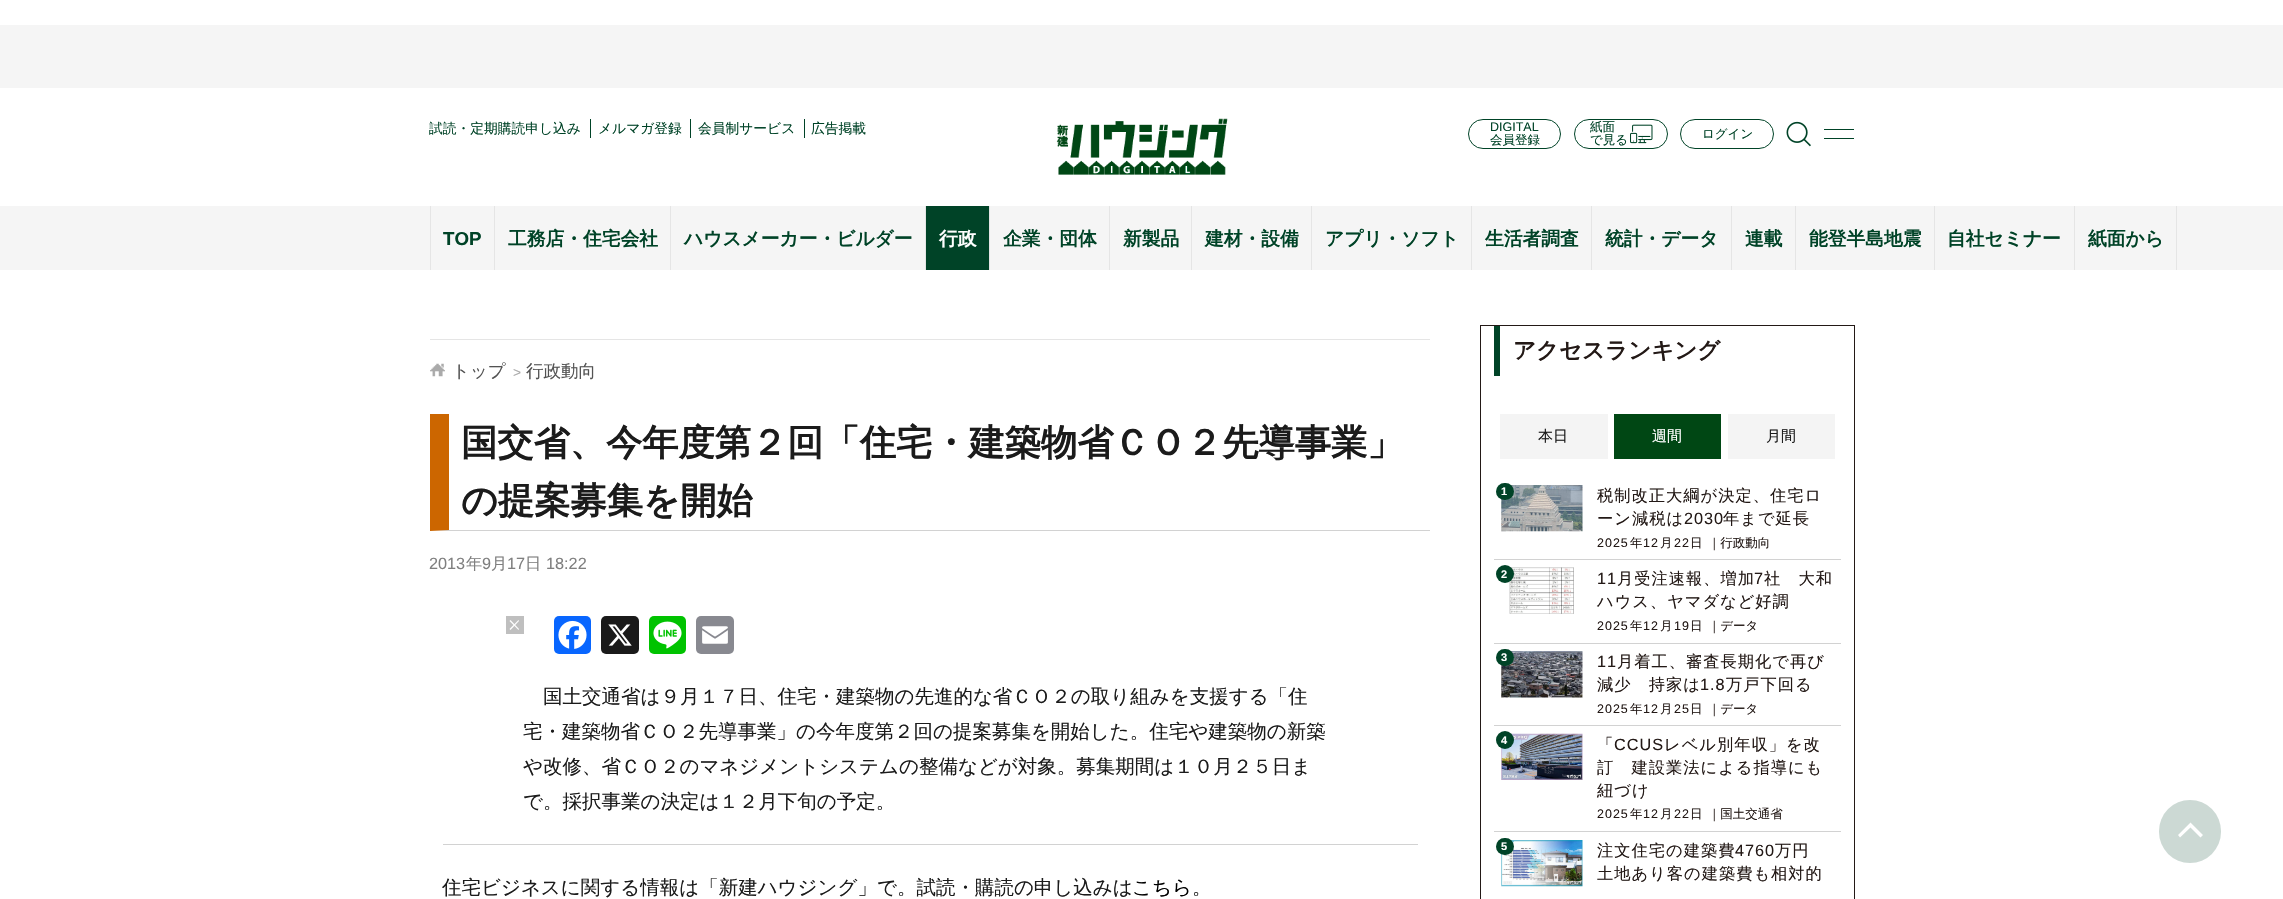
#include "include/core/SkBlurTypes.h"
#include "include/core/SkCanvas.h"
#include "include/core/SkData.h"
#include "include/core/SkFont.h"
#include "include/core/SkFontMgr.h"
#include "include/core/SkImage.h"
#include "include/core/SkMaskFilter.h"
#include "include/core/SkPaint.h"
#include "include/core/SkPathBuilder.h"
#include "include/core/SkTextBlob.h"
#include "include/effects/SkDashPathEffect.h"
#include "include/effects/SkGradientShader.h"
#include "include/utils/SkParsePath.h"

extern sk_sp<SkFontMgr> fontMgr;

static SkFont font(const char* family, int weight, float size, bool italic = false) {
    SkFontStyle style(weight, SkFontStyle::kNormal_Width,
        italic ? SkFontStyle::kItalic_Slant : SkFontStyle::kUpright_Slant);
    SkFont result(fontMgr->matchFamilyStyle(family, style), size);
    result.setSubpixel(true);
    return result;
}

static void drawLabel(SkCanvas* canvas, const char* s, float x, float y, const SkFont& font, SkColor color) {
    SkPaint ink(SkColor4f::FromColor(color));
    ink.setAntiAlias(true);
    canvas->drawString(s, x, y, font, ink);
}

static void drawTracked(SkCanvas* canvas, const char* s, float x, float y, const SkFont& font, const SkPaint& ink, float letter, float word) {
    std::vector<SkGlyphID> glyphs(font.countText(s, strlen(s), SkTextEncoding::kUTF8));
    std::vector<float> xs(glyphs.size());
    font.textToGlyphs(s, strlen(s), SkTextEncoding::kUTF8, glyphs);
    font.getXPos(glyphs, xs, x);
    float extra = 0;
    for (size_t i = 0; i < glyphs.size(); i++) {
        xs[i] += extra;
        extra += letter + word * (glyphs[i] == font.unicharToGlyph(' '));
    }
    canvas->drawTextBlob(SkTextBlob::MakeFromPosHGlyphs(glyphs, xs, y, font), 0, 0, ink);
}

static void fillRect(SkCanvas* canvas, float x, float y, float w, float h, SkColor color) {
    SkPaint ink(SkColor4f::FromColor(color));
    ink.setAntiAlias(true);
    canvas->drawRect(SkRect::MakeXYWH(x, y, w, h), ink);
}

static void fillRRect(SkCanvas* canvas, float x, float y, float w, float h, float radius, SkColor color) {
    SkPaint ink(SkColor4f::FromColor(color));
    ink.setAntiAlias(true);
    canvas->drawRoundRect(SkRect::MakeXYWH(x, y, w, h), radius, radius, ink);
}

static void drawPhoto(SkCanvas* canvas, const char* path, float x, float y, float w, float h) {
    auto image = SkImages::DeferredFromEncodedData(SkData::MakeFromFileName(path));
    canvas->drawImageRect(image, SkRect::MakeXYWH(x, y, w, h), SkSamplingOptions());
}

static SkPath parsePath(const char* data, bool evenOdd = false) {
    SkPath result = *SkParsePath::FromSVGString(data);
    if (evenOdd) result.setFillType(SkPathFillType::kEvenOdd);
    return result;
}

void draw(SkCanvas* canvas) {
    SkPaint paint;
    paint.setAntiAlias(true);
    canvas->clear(0xFFFFFFFF);
    fillRect(canvas, 0, 25, 2283, 63, 0xFFF5F5F5);
    SkFont font1 = font("WenQuanYi Zen Hei", 500, 13.75f);
    drawLabel(canvas, "試読・定期購読申し込み", 429, 133, font1, 0xFF004327);
    fillRect(canvas, 590, 119, 1, 19, 0xFF004327);
    drawLabel(canvas, "メルマガ登録", 598, 133, font1, 0xFF004327);
    fillRect(canvas, 690, 119, 1, 19, 0xFF004327);
    drawLabel(canvas, "会員制サービス", 698, 133, font1, 0xFF004327);
    fillRect(canvas, 804, 119, 1, 19, 0xFF004327);
    drawLabel(canvas, "広告掲載", 811, 133, font1, 0xFF004327);
    drawPhoto(canvas, "assets/img1.png", 1056, 118, 172, 57);
    paint.setStroke(true);
    paint.setStrokeWidth(1);
    paint.setColor(0xFF004327);
    canvas->drawRoundRect(SkRect::MakeXYWH(1468.5f, 119.5f, 92, 29), 14.5f, 14.5f, paint);
    SkFont font2 = font("Liberation Sans", 400, 12.5f);
    drawLabel(canvas, "DIGITAL", 1490, 131, font2, 0xFF004327);
    SkFont font3 = font("WenQuanYi Zen Hei", 500, 12.5f);
    drawLabel(canvas, "会員登録", 1490, 144, font3, 0xFF004327);
    canvas->drawRoundRect(SkRect::MakeXYWH(1574.5f, 119.5f, 93, 29), 14.5f, 14.5f, paint);
    drawLabel(canvas, "紙面", 1590, 131, font3, 0xFF004327);
    drawLabel(canvas, "で見る", 1590, 144, font3, 0xFF004327);
    drawPhoto(canvas, "assets/img2.png", 1630, 124, 23, 20);
    canvas->drawRoundRect(SkRect::MakeXYWH(1680.5f, 119.5f, 93, 29), 14.5f, 14.5f, paint);
    drawLabel(canvas, "ログイン", 1702, 138, font3, 0xFF004327);
    drawPhoto(canvas, "assets/img3.png", 1786, 121, 25, 26);
    fillRect(canvas, 1824, 129, 30, 1, 0xFF004327);
    fillRect(canvas, 1824, 138, 30, 1, 0xFF004327);
    fillRect(canvas, 0, 206, 2283, 64, 0xFFF5F5F5);
    fillRect(canvas, 430, 206, 1, 64, 0xFFE5E5E5);
    SkFont font4 = font("Liberation Sans", 700, 18.75f);
    drawLabel(canvas, "TOP", 443, 245, font4, 0xFF004327);
    fillRect(canvas, 494, 206, 1, 64, 0xFFE5E5E5);
    SkFont font5 = font("WenQuanYi Zen Hei", 700, 18.75f);
    drawLabel(canvas, "工務店・住宅会社", 508, 245, font5, 0xFF004327);
    fillRect(canvas, 670, 206, 1, 64, 0xFFE5E5E5);
    drawLabel(canvas, "ハウスメーカー・ビルダー", 684, 245, font5, 0xFF004327);
    fillRect(canvas, 926, 206, 63, 64, 0xFF004327);
    fillRect(canvas, 925, 206, 1, 64, 0xFFE5E5E5);
    drawLabel(canvas, "行政", 939, 245, font5, 0xFFFFFFFF);
    fillRect(canvas, 989, 206, 1, 64, 0xFFE5E5E5);
    drawLabel(canvas, "企業・団体", 1003, 245, font5, 0xFF004327);
    fillRect(canvas, 1109, 206, 1, 64, 0xFFE5E5E5);
    drawLabel(canvas, "新製品", 1123, 245, font5, 0xFF004327);
    fillRect(canvas, 1191, 206, 1, 64, 0xFFE5E5E5);
    drawLabel(canvas, "建材・設備", 1205, 245, font5, 0xFF004327);
    fillRect(canvas, 1311, 206, 1, 64, 0xFFE5E5E5);
    drawLabel(canvas, "アプリ・ソフト", 1325, 245, font5, 0xFF004327);
    fillRect(canvas, 1471, 206, 1, 64, 0xFFE5E5E5);
    drawLabel(canvas, "生活者調査", 1485, 245, font5, 0xFF004327);
    fillRect(canvas, 1591, 206, 1, 64, 0xFFE5E5E5);
    drawLabel(canvas, "統計・データ", 1605, 245, font5, 0xFF004327);
    fillRect(canvas, 1731, 206, 1, 64, 0xFFE5E5E5);
    drawLabel(canvas, "連載", 1745, 245, font5, 0xFF004327);
    fillRect(canvas, 1795, 206, 1, 64, 0xFFE5E5E5);
    drawLabel(canvas, "能登半島地震", 1809, 245, font5, 0xFF004327);
    fillRect(canvas, 1934, 206, 1, 64, 0xFFE5E5E5);
    drawLabel(canvas, "自社セミナー", 1947, 245, font5, 0xFF004327);
    fillRect(canvas, 2176, 206, 1, 64, 0xFFE5E5E5);
    fillRect(canvas, 2074, 206, 1, 64, 0xFFE5E5E5);
    drawLabel(canvas, "紙面から", 2088, 245, font5, 0xFF004327);
    fillRect(canvas, 430, 339, 1000, 1, 0xFFE5E5E5);
    drawPhoto(canvas, "assets/img4.png", 430, 363, 15, 14);
    SkFont font6 = font("WenQuanYi Zen Hei", 500, 17.5f);
    drawLabel(canvas, "トップ", 452, 377, font6, 0xFF535353);
    SkFont font7 = font("Liberation Sans", 400, 13.75f);
    drawLabel(canvas, ">", 513, 377, font7, 0xFFAAAAAA);
    drawLabel(canvas, "行政動向", 526, 377, font6, 0xFF535353);
    paint.setStroke(false);
    paint.setColor(0xFFD2D2D2);
    canvas->drawPath(parsePath("M1430 531H430L449 530H1430Z"), paint);
    paint.setColor(0xFFCC6600);
    canvas->drawPath(parsePath("M430 531V414H449V530Z"), paint);
    SkFont font8 = font("WenQuanYi Zen Hei", 700, 36.25f);
    drawLabel(canvas, "国交省、今年度第２回「住宅・建築物省ＣＯ２先導事業」", 461, 455, font8, 0xFF1B1B1B);
    drawLabel(canvas, "の提案募集を開始", 461, 513, font8, 0xFF1B1B1B);
    SkFont font9 = font("Liberation Sans", 400, 16.25f);
    drawLabel(canvas, "2013", 429, 569, font9, 0xFF7F7F7F);
    SkFont font10 = font("WenQuanYi Zen Hei", 500, 16.25f);
    drawLabel(canvas, "年", 466, 569, font10, 0xFF7F7F7F);
    drawLabel(canvas, "9", 482, 569, font9, 0xFF7F7F7F);
    drawLabel(canvas, "月", 491, 569, font10, 0xFF7F7F7F);
    drawLabel(canvas, "17", 507, 569, font9, 0xFF7F7F7F);
    drawLabel(canvas, "日", 525, 569, font10, 0xFF7F7F7F);
    drawLabel(canvas, "18:22", 546, 569, font9, 0xFF7F7F7F);
    fillRect(canvas, 506, 616, 18, 18, 0xFFBFBFBF);
    paint.setColor(0xFFFFFFFF);
    canvas->drawPath(parsePath("M510.5 620L519 629L518.5 630L509.5 621Z"), paint);
    canvas->drawPath(parsePath("M509.5 629L518.5 620L519 621L510.5 630Z"), paint);
    fillRRect(canvas, 554, 616, 37, 38, 5, 0xFF0866FF);
    drawPhoto(canvas, "assets/img5.png", 558, 620, 29, 29);
    fillRRect(canvas, 601, 616, 38, 38, 5, 0xFF1A1A1A);
    drawPhoto(canvas, "assets/img6.png", 608, 624, 24, 22);
    fillRRect(canvas, 649, 616, 37, 38, 5, 0xFF00C300);
    drawPhoto(canvas, "assets/img7.png", 653, 621, 29, 28);
    fillRRect(canvas, 696, 616, 38, 38, 5, 0xFF888990);
    drawPhoto(canvas, "assets/img8.png", 702, 626, 26, 18);
    SkFont font11 = font("WenQuanYi Zen Hei", 500, 19.5f);
    drawLabel(canvas, "国土交通省は９月１７日、住宅・建築物の先進的な省ＣＯ２の取り組みを支援する「住", 543, 703, font11, 0xFF1B1B1B);
    drawLabel(canvas, "宅・建築物省ＣＯ２先導事業」の今年度第２回の提案募集を開始した。住宅や建築物の新築", 523, 738, font11, 0xFF1B1B1B);
    drawLabel(canvas, "や改修、省ＣＯ２のマネジメントシステムの整備などが対象。募集期間は１０月２５日ま", 523, 773, font11, 0xFF1B1B1B);
    drawLabel(canvas, "で。採択事業の決定は１２月下旬の予定。", 523, 808, font11, 0xFF1B1B1B);
    fillRect(canvas, 443, 844, 975, 1, 0xFFD2D2D2);
    drawLabel(canvas, "住宅ビジネスに関する情報は「新建ハウジング」で。試読・購読の申し込みは", 442, 894, font11, 0xFF1B1B1B);
    drawLabel(canvas, "こちら", 1132, 894, font11, 0xFF000000);
    drawLabel(canvas, "。", 1192, 894, font11, 0xFF1B1B1B);
    paint.setStroke(true);
    paint.setColor(0xFF231916);
    canvas->drawRect(SkRect::MakeXYWH(1480.5f, 325.5f, 374, 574), paint);
    fillRect(canvas, 1494, 326, 6, 50, 0xFF004327);
    SkFont font12 = font("WenQuanYi Zen Hei", 700, 22.5f);
    drawLabel(canvas, "アクセスランキング", 1513, 358, font12, 0xFF231916);
    fillRect(canvas, 1500, 414, 108, 45, 0xFFF4F4F4);
    SkFont font13 = font("WenQuanYi Zen Hei", 500, 15);
    drawLabel(canvas, "本日", 1538, 441, font13, 0xFF1B1B1B);
    fillRect(canvas, 1614, 414, 107, 45, 0xFF004714);
    drawLabel(canvas, "週間", 1652, 441, font13, 0xFFFFFFFF);
    fillRect(canvas, 1728, 414, 107, 45, 0xFFF4F4F4);
    drawLabel(canvas, "月間", 1766, 441, font13, 0xFF1B1B1B);
    fillRect(canvas, 1494, 559, 347, 1, 0xFFD2D2D2);
    drawPhoto(canvas, "assets/img9.png", 1501, 485, 82, 47);
    fillRRect(canvas, 1496, 483, 18, 17, 8.5f, 0xFF004327);
    SkFont font14 = font("Liberation Sans", 700, 11);
    drawLabel(canvas, "1", 1501, 495, font14, 0xFFFFFFFF);
    paint.setStroke(false);
    drawTracked(canvas, "税制改正大綱が決定、住宅ロ", 1597, 501, font10, paint, 1, 0);
    drawTracked(canvas, "ーン減税は", 1597, 524, font10, paint, 1, 0);
    drawTracked(canvas, "2030", 1684, 524, font9, paint, 1, 0);
    drawTracked(canvas, "年まで延長", 1723, 524, font10, paint, 1, 0);
    drawTracked(canvas, "2025", 1597, 547, font2, paint, 1, 0);
    drawTracked(canvas, "年", 1630, 547, font3, paint, 1, 0);
    drawTracked(canvas, "12", 1643, 547, font2, paint, 1, 0);
    drawTracked(canvas, "月", 1660, 547, font3, paint, 1, 0);
    drawTracked(canvas, "22", 1674, 547, font2, paint, 1, 0);
    drawTracked(canvas, "日", 1690, 547, font3, paint, 1, 0);
    drawLabel(canvas, "｜行政動向", 1708, 547, font3, 0xFF231916);
    fillRect(canvas, 1494, 643, 347, 1, 0xFFD2D2D2);
    drawPhoto(canvas, "assets/img10.png", 1509, 567, 65, 47);
    paint.setColor(0xFF004327);
    canvas->drawCircle(1505, 574, 9, paint);
    drawLabel(canvas, "2", 1501, 578, font14, 0xFFFFFFFF);
    paint.setColor(0xFF231916);
    drawTracked(canvas, "11", 1597, 584, font9, paint, 1, 0);
    drawTracked(canvas, "月受注速報、増加", 1617, 584, font10, paint, 1, 0);
    drawTracked(canvas, "7", 1754, 584, font9, paint, 1, 0);
    drawTracked(canvas, "社　大和", 1764, 584, font10, paint, 1, 0);
    drawTracked(canvas, "ハウス、ヤマダなど好調", 1597, 607, font10, paint, 1, 0);
    drawTracked(canvas, "2025", 1597, 630, font2, paint, 1, 0);
    drawTracked(canvas, "年", 1630, 630, font3, paint, 1, 0);
    drawTracked(canvas, "12", 1643, 630, font2, paint, 1, 0);
    drawTracked(canvas, "月", 1660, 630, font3, paint, 1, 0);
    drawTracked(canvas, "19", 1674, 630, font2, paint, 1, 0);
    drawTracked(canvas, "日", 1690, 630, font3, paint, 1, 0);
    drawLabel(canvas, "｜データ", 1708, 630, font3, 0xFF231916);
    fillRect(canvas, 1494, 725, 347, 1, 0xFFD2D2D2);
    drawPhoto(canvas, "assets/img11.png", 1501, 651, 82, 47);
    fillRRect(canvas, 1496, 649, 18, 17, 8.5f, 0xFF004327);
    drawLabel(canvas, "3", 1501, 661, font14, 0xFFFFFFFF);
    drawTracked(canvas, "11", 1597, 667, font9, paint, 1, 0);
    drawTracked(canvas, "月着工、審査長期化で再び", 1617, 667, font10, paint, 1, 0);
    drawTracked(canvas, "減少　持家は", 1597, 690, font10, paint, 1, 0);
    drawTracked(canvas, "1.8", 1700, 690, font9, paint, 1, 0);
    drawTracked(canvas, "万戸下回る", 1726, 690, font10, paint, 1, 0);
    drawTracked(canvas, "2025", 1597, 713, font2, paint, 1, 0);
    drawTracked(canvas, "年", 1630, 713, font3, paint, 1, 0);
    drawTracked(canvas, "12", 1643, 713, font2, paint, 1, 0);
    drawTracked(canvas, "月", 1660, 713, font3, paint, 1, 0);
    drawTracked(canvas, "25", 1674, 713, font2, paint, 1, 0);
    drawTracked(canvas, "日", 1690, 713, font3, paint, 1, 0);
    drawLabel(canvas, "｜データ", 1708, 713, font3, 0xFF231916);
    fillRect(canvas, 1494, 831, 347, 1, 0xFFD2D2D2);
    drawPhoto(canvas, "assets/img12.png", 1501, 733, 82, 47);
    paint.setColor(0xFF004327);
    canvas->drawCircle(1505, 740, 9, paint);
    drawLabel(canvas, "4", 1501, 744, font14, 0xFFFFFFFF);
    paint.setColor(0xFF231916);
    drawTracked(canvas, "「", 1597, 750, font10, paint, 1, 0);
    drawTracked(canvas, "CCUS", 1614, 750, font9, paint, 1, 0);
    drawTracked(canvas, "レベル別年収」を改", 1664, 750, font10, paint, 1, 0);
    drawTracked(canvas, "訂　建設業法による指導にも", 1597, 773, font10, paint, 1, 0);
    drawTracked(canvas, "紐づけ", 1597, 796, font10, paint, 1, 0);
    drawTracked(canvas, "2025", 1597, 818, font2, paint, 1, 0);
    drawTracked(canvas, "年", 1630, 818, font3, paint, 1, 0);
    drawTracked(canvas, "12", 1643, 818, font2, paint, 1, 0);
    drawTracked(canvas, "月", 1660, 818, font3, paint, 1, 0);
    drawTracked(canvas, "22", 1674, 818, font2, paint, 1, 0);
    drawTracked(canvas, "日", 1690, 818, font3, paint, 1, 0);
    drawLabel(canvas, "｜国土交通省", 1708, 818, font3, 0xFF231916);
    drawPhoto(canvas, "assets/img13.png", 1501, 840, 82, 47);
    fillRRect(canvas, 1496, 838, 18, 17, 8.5f, 0xFF004327);
    drawLabel(canvas, "5", 1501, 850, font14, 0xFFFFFFFF);
    drawTracked(canvas, "注文住宅の建築費", 1597, 856, font10, paint, 1, 0);
    drawTracked(canvas, "4760", 1735, 856, font9, paint, 1, 0);
    drawTracked(canvas, "万円", 1775, 856, font10, paint, 1, 0);
    drawTracked(canvas, "土地あり客の建築費も相対的", 1597, 879, font10, paint, 1, 0);
    fillRRect(canvas, 2159, 800, 62, 63, 31, 0xFFCCD9D4);
    paint.setColor(0xFFFFFFFF);
    canvas->drawPath(parsePath("M2178 835L2180 837.5L2190.5 827.5L2200.5 837.5L2203 835L2190.5 822.5Z"), paint);
}
